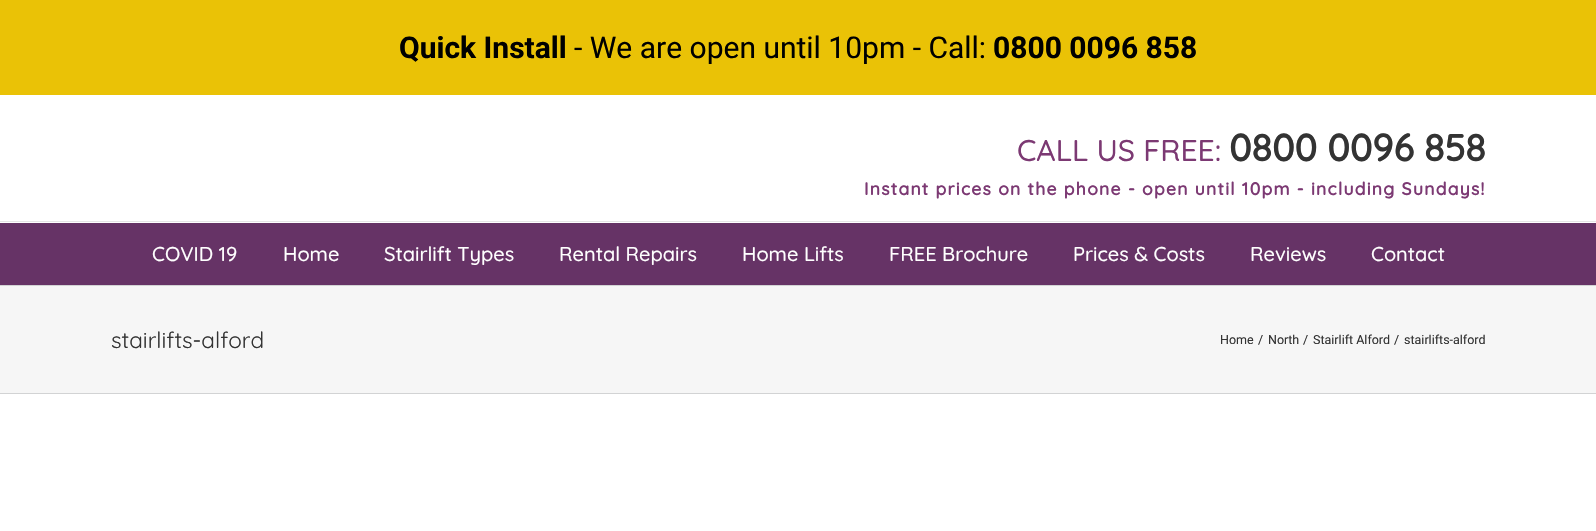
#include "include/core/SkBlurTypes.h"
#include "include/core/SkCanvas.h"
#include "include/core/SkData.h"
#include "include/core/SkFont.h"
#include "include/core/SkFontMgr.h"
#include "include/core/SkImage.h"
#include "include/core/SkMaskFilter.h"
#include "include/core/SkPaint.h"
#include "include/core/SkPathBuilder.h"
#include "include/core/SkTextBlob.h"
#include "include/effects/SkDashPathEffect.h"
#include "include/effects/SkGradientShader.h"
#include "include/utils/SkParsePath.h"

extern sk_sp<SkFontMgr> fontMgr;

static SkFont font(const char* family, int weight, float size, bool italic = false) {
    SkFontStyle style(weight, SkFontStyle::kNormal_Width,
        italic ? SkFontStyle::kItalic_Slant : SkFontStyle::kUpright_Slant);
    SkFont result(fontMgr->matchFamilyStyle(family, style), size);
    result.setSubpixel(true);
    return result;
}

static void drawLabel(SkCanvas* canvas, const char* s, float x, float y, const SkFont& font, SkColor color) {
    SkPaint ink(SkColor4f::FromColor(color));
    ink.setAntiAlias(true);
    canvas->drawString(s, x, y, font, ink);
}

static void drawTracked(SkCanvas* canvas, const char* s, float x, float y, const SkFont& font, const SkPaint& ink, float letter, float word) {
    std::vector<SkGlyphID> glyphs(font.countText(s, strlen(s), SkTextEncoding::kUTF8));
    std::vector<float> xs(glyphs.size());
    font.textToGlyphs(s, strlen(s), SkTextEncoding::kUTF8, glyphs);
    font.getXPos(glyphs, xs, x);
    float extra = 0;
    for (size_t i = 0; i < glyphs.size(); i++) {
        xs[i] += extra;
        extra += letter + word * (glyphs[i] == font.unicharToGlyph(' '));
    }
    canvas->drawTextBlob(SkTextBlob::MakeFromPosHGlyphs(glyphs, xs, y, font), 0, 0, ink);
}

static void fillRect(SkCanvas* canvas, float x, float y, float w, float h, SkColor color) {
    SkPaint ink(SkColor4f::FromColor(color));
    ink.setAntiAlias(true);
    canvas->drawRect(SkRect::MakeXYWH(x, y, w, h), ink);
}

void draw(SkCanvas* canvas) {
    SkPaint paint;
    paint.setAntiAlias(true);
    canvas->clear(0xFFFFFFFF);
    fillRect(canvas, 0, 0, 1596, 95, 0xFFEAC206);
    SkFont font1 = font("Roboto", 700, 30);
    drawLabel(canvas, "Quick Install", 399, 58, font1, 0xFF000000);
    SkFont font2 = font("Roboto", 400, 30);
    drawLabel(canvas, "- We are open until 10pm - Call:", 574, 58, font2, 0xFF000000);
    drawLabel(canvas, "0800 0096 858", 993, 58, font1, 0xFF000000);
    fillRect(canvas, 0, 221, 1596, 1, 0xFFE5E5E5);
    SkFont font3 = font("Quicksand", 300, 30);
    drawLabel(canvas, "CALL US FREE:", 1017, 161, font3, 0xFF7C3973);
    SkFont font4 = font("Quicksand", 700, 37.5f);
    drawLabel(canvas, "0800 0096 858", 1229, 161, font4, 0xFF333333);
    SkFont font5 = font("Quicksand", 700, 17.5f);
    paint.setColor(0xFF7C3973);
    drawTracked(canvas, "Instant prices on the phone - open until 10pm - including Sundays!", 864, 195, font5, paint, 1.25f, 0);
    fillRect(canvas, 0, 223, 1596, 62, 0xFF663366);
    SkFont font6 = font("Quicksand", 300, 20);
    drawLabel(canvas, "COVID 19", 152, 261, font6, 0xFFFFFFFF);
    drawLabel(canvas, "Home", 283, 261, font6, 0xFFFFFFFF);
    drawLabel(canvas, "Stairlift Types", 384, 261, font6, 0xFFFFFFFF);
    drawLabel(canvas, "Rental Repairs", 559, 261, font6, 0xFFFFFFFF);
    drawLabel(canvas, "Home Lifts", 742, 261, font6, 0xFFFFFFFF);
    drawLabel(canvas, "FREE Brochure", 889, 261, font6, 0xFFFFFFFF);
    drawLabel(canvas, "Prices & Costs", 1073, 261, font6, 0xFFFFFFFF);
    drawLabel(canvas, "Reviews", 1250, 261, font6, 0xFFFFFFFF);
    drawLabel(canvas, "Contact", 1371, 261, font6, 0xFFFFFFFF);
    fillRect(canvas, 0, 286, 1596, 107, 0xFFF6F6F6);
    fillRect(canvas, 0, 285, 1596, 1, 0xFFD2D3D4);
    fillRect(canvas, 0, 393, 1596, 1, 0xFFD2D3D4);
    SkFont font7 = font("Quicksand", 400, 22.5f);
    drawLabel(canvas, "stairlifts-alford", 111, 348, font7, 0xFF333333);
    SkFont font8 = font("Roboto", 400, 12.5f);
    drawLabel(canvas, "Home", 1220, 344, font8, 0xFF333333);
    drawLabel(canvas, "/", 1258, 344, font8, 0xFF333333);
    drawLabel(canvas, "North", 1268, 344, font8, 0xFF333333);
    drawLabel(canvas, "/", 1303, 344, font8, 0xFF333333);
    drawLabel(canvas, "Stairlift Alford", 1313, 344, font8, 0xFF333333);
    drawLabel(canvas, "/", 1394, 344, font8, 0xFF333333);
    drawLabel(canvas, "stairlifts-alford", 1404, 344, font8, 0xFF333333);
}
